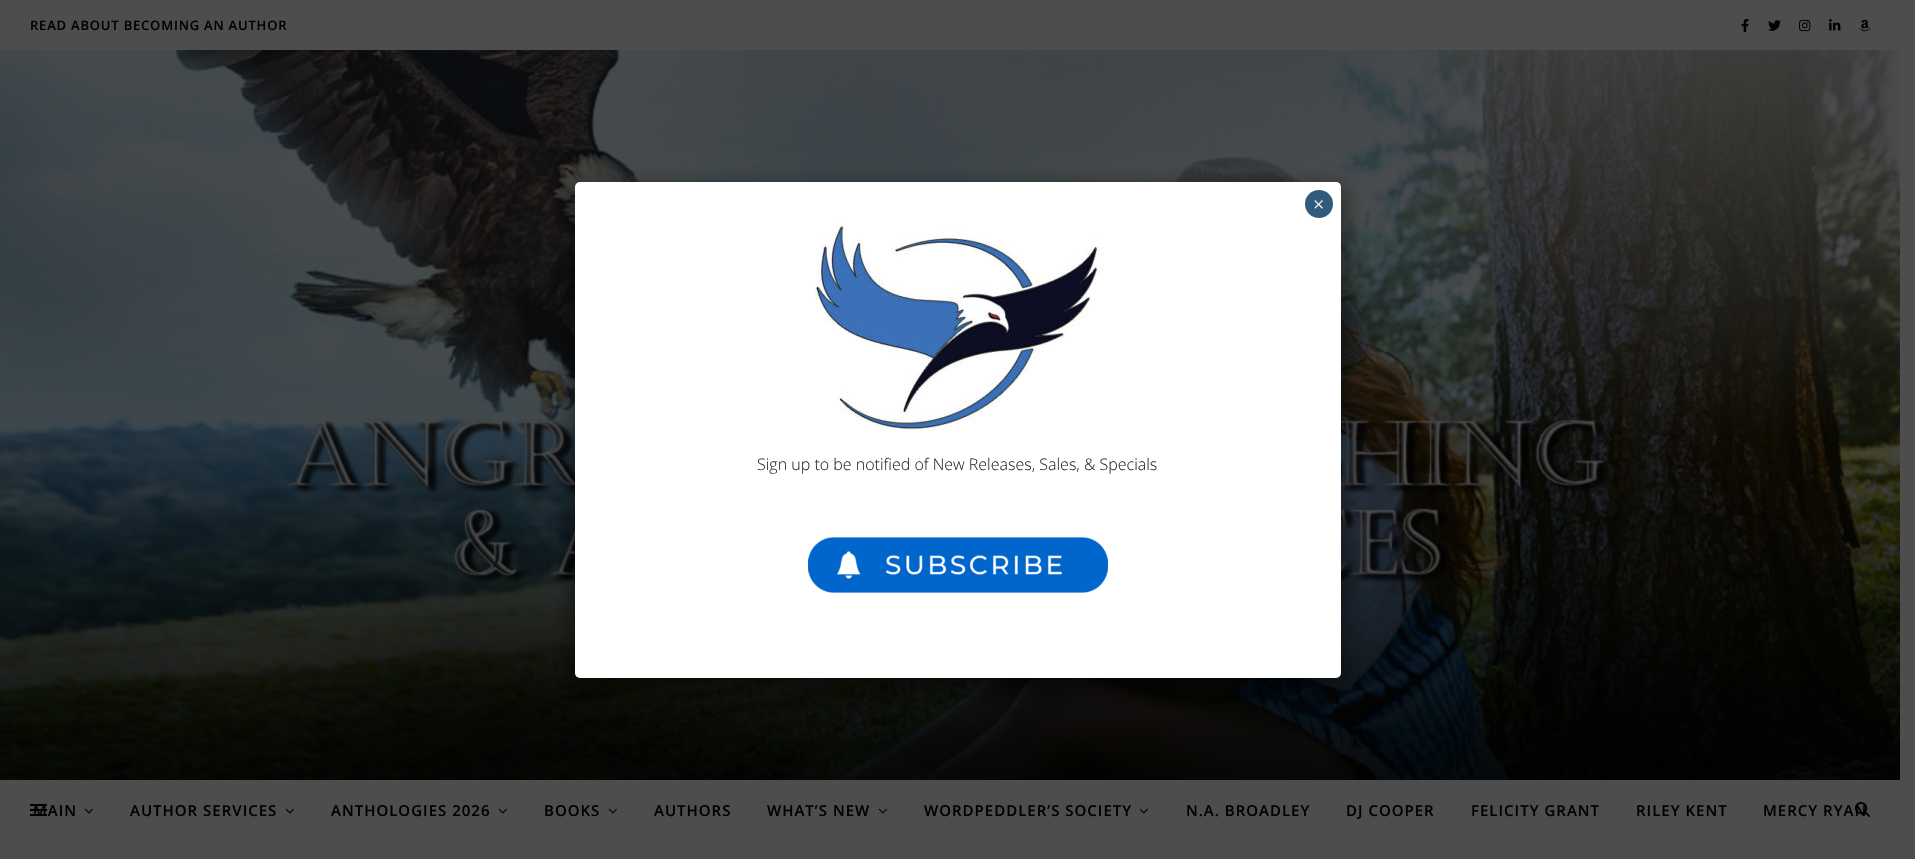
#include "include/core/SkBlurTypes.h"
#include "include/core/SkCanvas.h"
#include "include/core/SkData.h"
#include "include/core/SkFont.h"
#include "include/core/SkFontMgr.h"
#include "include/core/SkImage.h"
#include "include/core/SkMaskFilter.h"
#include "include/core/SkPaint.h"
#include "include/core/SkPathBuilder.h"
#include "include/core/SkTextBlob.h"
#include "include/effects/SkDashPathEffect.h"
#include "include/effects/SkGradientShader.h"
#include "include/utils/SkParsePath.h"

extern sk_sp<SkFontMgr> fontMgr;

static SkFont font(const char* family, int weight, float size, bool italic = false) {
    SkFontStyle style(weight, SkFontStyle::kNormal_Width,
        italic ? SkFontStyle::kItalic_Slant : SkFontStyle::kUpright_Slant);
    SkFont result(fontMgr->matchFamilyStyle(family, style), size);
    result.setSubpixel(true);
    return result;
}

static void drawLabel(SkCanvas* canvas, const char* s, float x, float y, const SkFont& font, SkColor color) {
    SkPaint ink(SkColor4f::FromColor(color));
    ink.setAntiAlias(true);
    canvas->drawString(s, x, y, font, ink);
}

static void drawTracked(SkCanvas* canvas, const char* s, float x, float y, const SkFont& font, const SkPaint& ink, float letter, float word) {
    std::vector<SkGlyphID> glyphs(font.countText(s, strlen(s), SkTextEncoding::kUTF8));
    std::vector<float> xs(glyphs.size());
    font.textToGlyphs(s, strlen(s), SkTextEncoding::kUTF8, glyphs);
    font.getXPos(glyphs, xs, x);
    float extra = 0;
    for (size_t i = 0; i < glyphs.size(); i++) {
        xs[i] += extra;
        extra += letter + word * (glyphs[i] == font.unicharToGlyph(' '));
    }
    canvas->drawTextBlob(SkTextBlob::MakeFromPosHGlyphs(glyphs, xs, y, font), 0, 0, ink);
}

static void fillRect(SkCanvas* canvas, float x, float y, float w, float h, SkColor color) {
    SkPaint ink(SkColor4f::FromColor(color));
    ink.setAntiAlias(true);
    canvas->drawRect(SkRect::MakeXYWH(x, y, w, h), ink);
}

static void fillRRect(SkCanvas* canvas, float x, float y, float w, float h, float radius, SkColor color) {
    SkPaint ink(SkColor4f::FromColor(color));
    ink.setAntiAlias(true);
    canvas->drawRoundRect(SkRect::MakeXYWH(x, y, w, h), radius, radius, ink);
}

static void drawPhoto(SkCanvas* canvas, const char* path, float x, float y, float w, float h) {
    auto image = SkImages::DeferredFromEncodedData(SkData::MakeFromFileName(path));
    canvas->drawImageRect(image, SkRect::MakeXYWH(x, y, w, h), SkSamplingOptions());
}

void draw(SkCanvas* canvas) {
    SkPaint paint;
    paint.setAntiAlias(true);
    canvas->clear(0xFF4D4D4D);
    SkFont font1 = font("Open Sans", 600, 13);
    paint.setColor(0xFF000000);
    drawTracked(canvas, "READ ABOUT BECOMING AN AUTHOR", 30, 30, font1, paint, 0.8f, 0);
    drawPhoto(canvas, "assets/img1.png", 1741, 19, 8, 13);
    drawPhoto(canvas, "assets/img2.png", 1768, 20, 13, 11);
    drawPhoto(canvas, "assets/img3.png", 1799, 19, 12, 13);
    drawPhoto(canvas, "assets/img4.png", 1829, 19, 12, 12);
    drawPhoto(canvas, "assets/img5.png", 1859, 19, 12, 13);
    drawPhoto(canvas, "assets/img6.png", 0, 50, 1900, 730);
    fillRect(canvas, 30, 804, 17, 2, 0xFF000000);
    fillRect(canvas, 30, 809, 17, 2, 0xFF000000);
    fillRect(canvas, 30, 814, 17, 2, 0xFF000000);
    SkFont font2 = font("Open Sans", 600, 15);
    drawTracked(canvas, "MERCY RYAN", 1763, 816, font2, paint, 1, 0);
    drawPhoto(canvas, "assets/img7.png", 1855, 802, 15, 15);
    drawTracked(canvas, "MAIN", 33, 816, font2, paint, 1, 0);
    drawPhoto(canvas, "assets/img8.png", 84, 808, 9, 6);
    drawTracked(canvas, "AUTHOR SERVICES", 130, 816, font2, paint, 1, 0);
    drawPhoto(canvas, "assets/img8.png", 285, 808, 9, 6);
    drawTracked(canvas, "ANTHOLOGIES 2026", 331, 816, font2, paint, 1, 0);
    drawPhoto(canvas, "assets/img8.png", 498, 808, 9, 6);
    drawTracked(canvas, "BOOKS", 544, 816, font2, paint, 1, 0);
    drawPhoto(canvas, "assets/img8.png", 608, 808, 9, 6);
    drawTracked(canvas, "AUTHORS", 654, 816, font2, paint, 1, 0);
    drawTracked(canvas, "WHAT’S NEW", 767, 816, font2, paint, 1, 0);
    drawPhoto(canvas, "assets/img8.png", 878, 808, 9, 6);
    drawTracked(canvas, "WORDPEDDLER’S SOCIETY", 924, 816, font2, paint, 1, 0);
    drawPhoto(canvas, "assets/img8.png", 1139, 808, 9, 6);
    drawTracked(canvas, "N.A. BROADLEY", 1186, 816, font2, paint, 1, 0);
    drawTracked(canvas, "DJ COOPER", 1346, 816, font2, paint, 1, 0);
    drawTracked(canvas, "FELICITY GRANT", 1471, 816, font2, paint, 1, 0);
    drawTracked(canvas, "RILEY KENT", 1636, 816, font2, paint, 1, 0);
    paint.setColor(0x80020202);
    paint.setMaskFilter(SkMaskFilter::MakeBlur(kNormal_SkBlurStyle, 12.5f));
    canvas->drawRoundRect(SkRect::MakeXYWH(571, 188, 774, 504), 9, 9, paint);
    paint.setMaskFilter(nullptr);
    fillRRect(canvas, 575, 182, 766, 496, 5, 0xFFFFFFFF);
    paint.setColor(0xFF315B7C);
    canvas->drawCircle(1319, 204, 14, paint);
    SkFont font3 = font("Liberation Serif", 400, 20);
    drawLabel(canvas, "×", 1313, 211, font3, 0xFFFFFFFF);
    drawPhoto(canvas, "assets/img9.png", 815, 223, 289, 208);
    SkFont font4 = font("Open Sans", 300, 16);
    drawLabel(canvas, "Sign up to be notified of New Releases, Sales, & Specials", 757, 470, font4, 0xFF2D2D2D);
    drawPhoto(canvas, "assets/img10.png", 808, 537, 300, 56);
}
